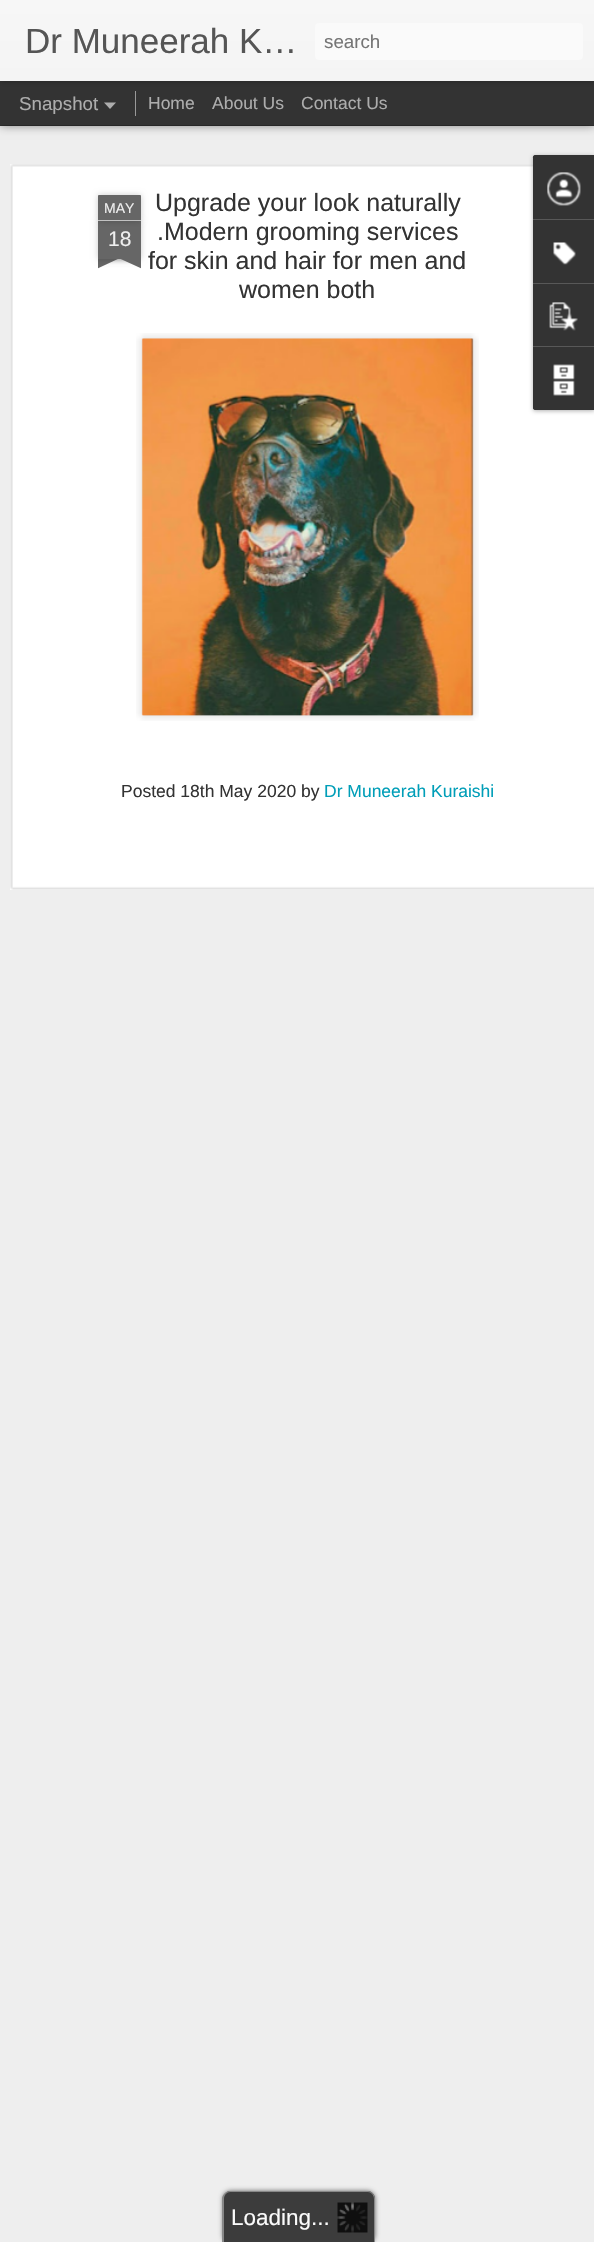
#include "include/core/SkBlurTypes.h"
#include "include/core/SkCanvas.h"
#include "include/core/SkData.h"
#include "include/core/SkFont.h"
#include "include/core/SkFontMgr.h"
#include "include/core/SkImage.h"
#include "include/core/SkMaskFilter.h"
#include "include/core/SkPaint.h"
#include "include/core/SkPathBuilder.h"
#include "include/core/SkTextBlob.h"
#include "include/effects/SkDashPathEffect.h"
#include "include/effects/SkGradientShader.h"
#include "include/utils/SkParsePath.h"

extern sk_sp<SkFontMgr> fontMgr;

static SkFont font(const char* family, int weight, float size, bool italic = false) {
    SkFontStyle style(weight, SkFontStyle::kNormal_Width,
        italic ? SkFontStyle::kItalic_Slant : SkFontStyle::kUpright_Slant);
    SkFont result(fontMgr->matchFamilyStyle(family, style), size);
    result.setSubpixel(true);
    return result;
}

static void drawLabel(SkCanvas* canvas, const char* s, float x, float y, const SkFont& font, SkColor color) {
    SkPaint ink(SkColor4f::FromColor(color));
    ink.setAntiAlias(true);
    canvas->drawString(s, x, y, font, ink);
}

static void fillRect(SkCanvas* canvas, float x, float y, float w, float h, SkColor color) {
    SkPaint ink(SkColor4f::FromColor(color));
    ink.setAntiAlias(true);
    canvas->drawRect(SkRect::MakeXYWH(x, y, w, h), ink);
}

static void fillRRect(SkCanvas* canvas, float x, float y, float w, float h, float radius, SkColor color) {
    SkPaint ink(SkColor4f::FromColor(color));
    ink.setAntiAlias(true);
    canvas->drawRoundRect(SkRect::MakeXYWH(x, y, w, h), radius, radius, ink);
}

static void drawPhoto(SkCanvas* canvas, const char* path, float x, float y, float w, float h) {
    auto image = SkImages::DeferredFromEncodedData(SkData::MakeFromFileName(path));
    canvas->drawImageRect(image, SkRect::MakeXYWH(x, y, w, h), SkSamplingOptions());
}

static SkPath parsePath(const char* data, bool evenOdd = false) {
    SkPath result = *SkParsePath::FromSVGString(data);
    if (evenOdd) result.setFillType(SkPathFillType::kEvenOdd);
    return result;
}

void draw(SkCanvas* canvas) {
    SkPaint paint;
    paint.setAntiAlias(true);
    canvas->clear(0xFF333333);
    fillRect(canvas, 0, 126, 594, 2116, 0xFFEEEEEE);
    paint.setColor(0x80000000);
    paint.setMaskFilter(SkMaskFilter::MakeBlur(kNormal_SkBlurStyle, 5));
    canvas->drawRect(SkRect::MakeXYWH(0, 81, 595, 44), paint);
    paint.setMaskFilter(nullptr);
    fillRect(canvas, 0, 81, 594, 44, 0xFF333333);
    paint.setColor(0x4D000000);
    paint.setMaskFilter(SkMaskFilter::MakeBlur(kNormal_SkBlurStyle, 3));
    canvas->drawRect(SkRect::MakeXYWH(0, 0, 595, 81), paint);
    paint.setMaskFilter(nullptr);
    {
        const SkColor colors[] = {0xFFF7F7F7, 0xFFF4F4F4};
        const float stops[] = {0, 1};
        const SkPoint ends[] = {{0, 0}, {0, 81}};
        paint.setShader(SkGradientShader::MakeLinear(ends, colors, stops, 2, SkTileMode::kClamp));
        paint.setAlpha(255);
    }
    canvas->drawRect(SkRect::MakeXYWH(0, 0, 594, 81), paint);
    SkFont font1 = font("Liberation Sans", 400, 35);
    drawLabel(canvas, "Dr Muneerah K…", 25, 53, font1, 0xFF555555);
    fillRRect(canvas, 315, 23, 268, 37, 4, 0xFFFAFAFA);
    SkFont font2 = font("Liberation Sans", 400, 18.75f);
    drawLabel(canvas, "search", 324, 48, font2, 0xFF757575);
    drawLabel(canvas, "Snapshot", 19, 110, font2, 0xFFADADAD);
    paint.setShader(nullptr);
    paint.setColor(0xFFADADAD);
    canvas->drawPath(parsePath("M104 102.5H116L110 109Z"), paint);
    fillRect(canvas, 135, 91, 1, 25, 0xFF999999);
    SkFont font3 = font("Liberation Sans", 400, 17.5f);
    drawLabel(canvas, "Home", 148, 109, font3, 0xFFADADAD);
    drawLabel(canvas, "About Us", 212, 109, font3, 0xFFADADAD);
    drawLabel(canvas, "Contact Us", 301, 109, font3, 0xFFADADAD);
    fillRect(canvas, 10, 164, 584, 726, 0xFFFFFFFF);
    drawPhoto(canvas, "assets/img1.png", 10, 164, 584, 726);
    paint.setColor(0x33000000);
    paint.setMaskFilter(SkMaskFilter::MakeBlur(kNormal_SkBlurStyle, 3));
    canvas->drawRect(SkRect::MakeXYWH(98, 221, 43, 38), paint);
    paint.setMaskFilter(nullptr);
    fillRect(canvas, 98, 221, 43, 38, 0xFF666666);
    paint.setMaskFilter(SkMaskFilter::MakeBlur(kNormal_SkBlurStyle, 3));
    canvas->drawRoundRect(SkRect::MakeXYWH(98, 195, 43, 26), 1, 1, paint);
    paint.setMaskFilter(nullptr);
    paint.setColor(0xFF666666);
    canvas->drawPath(parsePath("M99 195H140C140.5 195 141 195.5 141 196V221H98V196C98 195.5 98.5 195 99 195Z"), paint);
    fillRect(canvas, 98, 220, 43, 1, 0xFFC2C2C2);
    SkFont font4 = font("Liberation Sans", 400, 14);
    drawLabel(canvas, "MAY", 104, 213, font4, 0xFFEEEEEE);
    SkFont font5 = font("Liberation Sans", 400, 21);
    drawLabel(canvas, "18", 108, 246, font5, 0xFFEEEEEE);
    canvas->save();
    canvas->clipRect(SkRect::MakeXYWH(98, 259, 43, 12));
    paint.setColor(0x33000000);
    paint.setMaskFilter(SkMaskFilter::MakeBlur(kNormal_SkBlurStyle, 3));
    canvas->drawRect(SkRect::MakeXYWH(86, 246, 63, 13), paint);
    paint.setMaskFilter(nullptr);
    canvas->restore();
    canvas->save();
    canvas->clipRect(SkRect::MakeXYWH(98, 259, 43, 12));
    paint.setColor(0xFF666666);
    canvas->drawPath(parsePath("M87 260L143 234L148 245L92 271Z"), paint);
    canvas->restore();
    canvas->save();
    canvas->clipRect(SkRect::MakeXYWH(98, 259, 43, 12));
    paint.setColor(0x33000000);
    paint.setMaskFilter(SkMaskFilter::MakeBlur(kNormal_SkBlurStyle, 3));
    canvas->drawRect(SkRect::MakeXYWH(90, 246, 63, 13), paint);
    paint.setMaskFilter(nullptr);
    canvas->restore();
    canvas->save();
    canvas->clipRect(SkRect::MakeXYWH(98, 259, 43, 12));
    paint.setColor(0xFF666666);
    canvas->drawPath(parsePath("M96 234L152 260L147 271L90 245Z"), paint);
    canvas->restore();
    SkFont font6 = font("Liberation Sans", 400, 25);
    drawLabel(canvas, "Upgrade your look naturally", 155, 211, font6, 0xFF333333);
    drawLabel(canvas, ".Modern grooming services", 157, 240, font6, 0xFF333333);
    drawLabel(canvas, "for skin and hair for men and", 148, 269, font6, 0xFF333333);
    drawLabel(canvas, "women both", 239, 298, font6, 0xFF333333);
    drawPhoto(canvas, "assets/img2.png", 136, 333, 343, 388);
    drawPhoto(canvas, "assets/img3.png", 141, 338, 333, 378);
    drawLabel(canvas, "Posted 18th May 2020 by", 121, 797, font3, 0xFF333333);
    drawLabel(canvas, "Dr Muneerah Kuraishi", 324, 797, font3, 0xFF009EB8);
    paint.setColor(0x4D000000);
    paint.setMaskFilter(SkMaskFilter::MakeBlur(kNormal_SkBlurStyle, 2));
    canvas->drawRoundRect(SkRect::MakeXYWH(533, 156, 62, 255), 2.5f, 2.5f, paint);
    paint.setMaskFilter(nullptr);
    paint.setColor(0xFF333333);
    canvas->drawPath(parsePath("M535.5 155H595V410H535.5C534 410 533 409 533 407.5V157.5C533 156 534 155 535.5 155Z"), paint);
    canvas->drawPath(parsePath("M535.5 155H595V219H533V157.5C533 156 534 155 535.5 155Z"), paint);
    drawPhoto(canvas, "assets/img4.png", 547, 172, 34, 34);
    fillRect(canvas, 533, 219, 61, 1, 0xFF585858);
    drawPhoto(canvas, "assets/img5.png", 553, 242, 23, 23);
    fillRect(canvas, 533, 283, 61, 1, 0xFF585858);
    drawPhoto(canvas, "assets/img6.png", 549, 302, 29, 29);
    canvas->drawPath(parsePath("M533 346H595V410H535.5C534 410 533 409 533 407.5Z"), paint);
    fillRect(canvas, 533, 346, 61, 1, 0xFF585858);
    drawPhoto(canvas, "assets/img7.png", 553, 364, 22, 32);
    paint.setColor(0xFF626262);
    paint.setMaskFilter(SkMaskFilter::MakeBlur(kNormal_SkBlurStyle, 2.5f));
    canvas->drawRoundRect(SkRect::MakeXYWH(223, 2191, 152, 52), 8, 8, paint);
    paint.setMaskFilter(nullptr);
    paint.setColor(0xFF3C3C3C);
    canvas->drawPath(parsePath("M231 2191H367C371.5 2191 375 2194.5 375 2199V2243H223V2199C223 2194.5 226.5 2191 231 2191Z"), paint);
    paint.setColor(0xFF888888);
    canvas->drawPath(parsePath("M230 2191H368C372 2191 375 2195 375 2199V2242H222V2199C222 2195 226 2191 230 2191ZM230 2192H368C371 2192 374 2195 374 2199V2242H224V2199C224 2195 227 2192 230 2192Z", true), paint);
    drawPhoto(canvas, "assets/img8.png", 337, 2202, 31, 31);
    SkFont font7 = font("Liberation Sans", 400, 22.5f);
    drawLabel(canvas, "Loading...", 231, 2225, font7, 0xFFFBFBFB);
}
